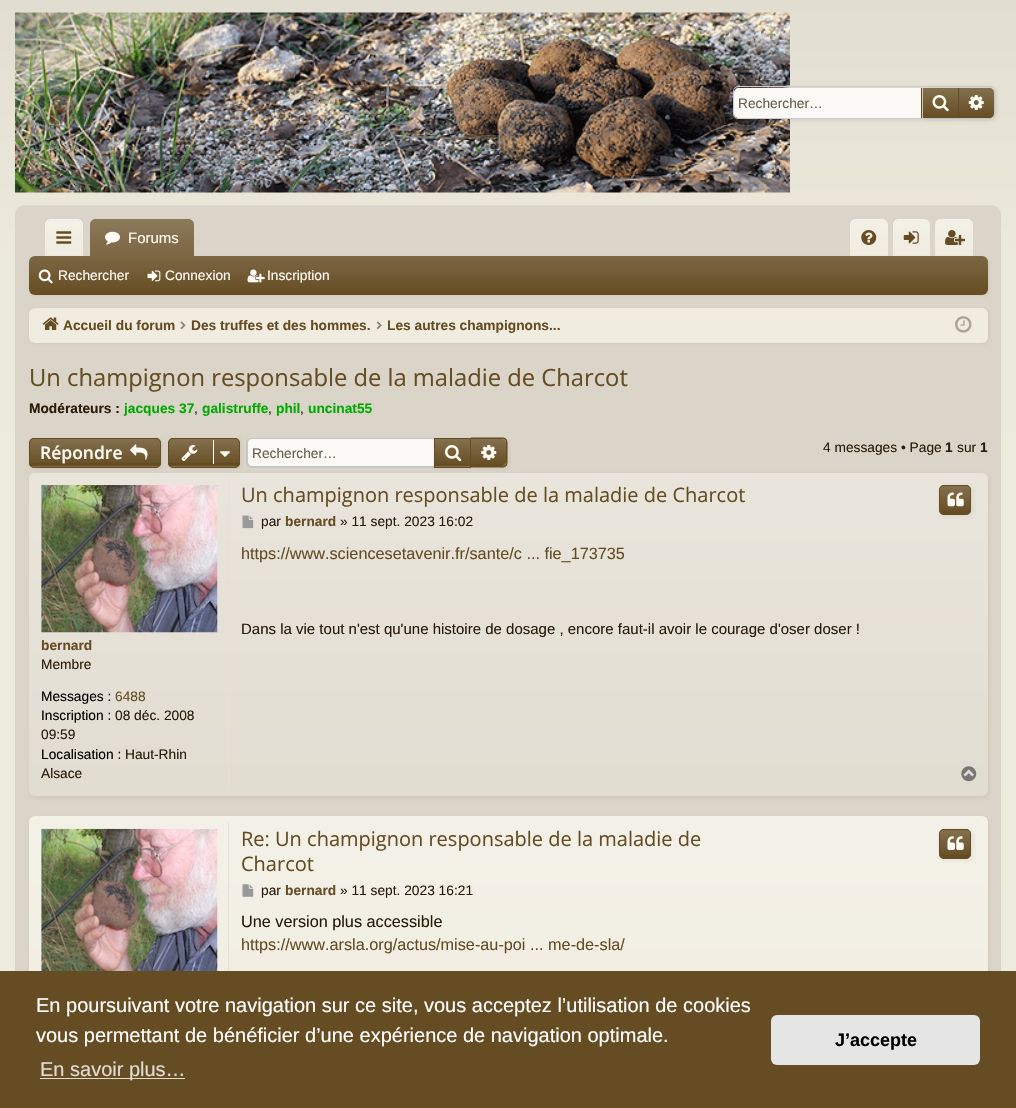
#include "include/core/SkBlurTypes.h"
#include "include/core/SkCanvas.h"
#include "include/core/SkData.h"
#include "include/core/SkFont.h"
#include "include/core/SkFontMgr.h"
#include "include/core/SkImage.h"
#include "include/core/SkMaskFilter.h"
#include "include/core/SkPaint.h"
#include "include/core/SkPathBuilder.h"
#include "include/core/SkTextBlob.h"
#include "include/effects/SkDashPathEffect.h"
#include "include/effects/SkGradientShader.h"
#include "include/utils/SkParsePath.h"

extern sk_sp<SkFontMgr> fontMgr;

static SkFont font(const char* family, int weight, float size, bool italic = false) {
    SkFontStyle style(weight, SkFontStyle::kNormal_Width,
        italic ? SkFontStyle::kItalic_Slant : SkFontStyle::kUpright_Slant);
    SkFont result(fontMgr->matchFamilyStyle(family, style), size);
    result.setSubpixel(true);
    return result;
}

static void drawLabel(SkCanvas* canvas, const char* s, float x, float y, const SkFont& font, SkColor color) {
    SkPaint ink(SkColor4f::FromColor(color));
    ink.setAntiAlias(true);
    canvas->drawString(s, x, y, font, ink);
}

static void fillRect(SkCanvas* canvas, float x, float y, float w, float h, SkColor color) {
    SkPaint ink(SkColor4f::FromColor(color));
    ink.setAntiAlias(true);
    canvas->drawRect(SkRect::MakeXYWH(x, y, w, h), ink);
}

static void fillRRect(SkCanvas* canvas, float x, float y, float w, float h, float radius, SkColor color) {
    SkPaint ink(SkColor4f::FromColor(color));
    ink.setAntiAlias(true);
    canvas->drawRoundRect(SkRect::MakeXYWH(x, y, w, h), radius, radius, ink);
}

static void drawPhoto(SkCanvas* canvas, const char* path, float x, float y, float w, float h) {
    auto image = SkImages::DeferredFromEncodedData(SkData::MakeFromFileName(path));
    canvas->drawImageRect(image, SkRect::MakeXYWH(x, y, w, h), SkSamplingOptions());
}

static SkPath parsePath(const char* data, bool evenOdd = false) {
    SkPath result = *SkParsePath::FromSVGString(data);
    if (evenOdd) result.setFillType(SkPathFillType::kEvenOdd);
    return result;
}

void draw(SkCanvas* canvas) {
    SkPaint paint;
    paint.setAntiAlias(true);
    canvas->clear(0xFFFFFFFF);
    {
        const SkColor colors[] = {0xFFE2DDD1, 0xFFECEADC, 0xFFF0EFE0};
        const float stops[] = {0, 0.13f, 1};
        const SkPoint ends[] = {{508, 0}, {508, 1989}};
        paint.setShader(SkGradientShader::MakeLinear(ends, colors, stops, 3, SkTileMode::kClamp));
        paint.setAlpha(255);
    }
    canvas->drawRect(SkRect::MakeXYWH(0, 0, 1016, 971), paint);
    drawPhoto(canvas, "assets/img1.png", 15, 12, 775, 181);
    paint.setShader(nullptr);
    paint.setColor(0x1A000000);
    paint.setMaskFilter(SkMaskFilter::MakeBlur(kNormal_SkBlurStyle, 2));
    canvas->drawRoundRect(SkRect::MakeXYWH(734, 88, 262, 32), 5, 5, paint);
    paint.setMaskFilter(nullptr);
    paint.setStroke(true);
    paint.setStrokeWidth(1);
    paint.setColor(0xFFCCCCCC);
    canvas->drawRoundRect(SkRect::MakeXYWH(733.5f, 86.5f, 261, 32), 4.5f, 4.5f, paint);
    paint.setStroke(false);
    paint.setColor(0xFFFBF9F6);
    canvas->drawPath(parsePath("M739 88H921V118H739C736 118 734 116 734 113V93C734 90 736 88 739 88Z"), paint);
    SkFont font1 = font("Liberation Sans", 400, 13.75f);
    drawLabel(canvas, "Rechercher…", 738, 108, font1, 0xFF675E4F);
    paint.setColor(0x1A654C22);
    paint.setMaskFilter(SkMaskFilter::MakeBlur(kNormal_SkBlurStyle, 2));
    canvas->drawRect(SkRect::MakeXYWH(923, 89, 37, 30), paint);
    paint.setMaskFilter(nullptr);
    {
        const SkColor colors[] = {0xFF84704E, 0xFF654C22};
        const float stops[] = {0, 1};
        const SkPoint ends[] = {{940, 88}, {940, 118}};
        paint.setShader(SkGradientShader::MakeLinear(ends, colors, stops, 2, SkTileMode::kClamp));
        paint.setAlpha(255);
    }
    canvas->drawRect(SkRect::MakeXYWH(923, 88, 35, 30), paint);
    fillRect(canvas, 958, 88, 1, 30, 0xFF654C22);
    fillRect(canvas, 921, 88, 1, 30, 0xFF654C22);
    drawPhoto(canvas, "assets/img2.png", 932, 95, 17, 17);
    paint.setShader(nullptr);
    paint.setColor(0x1A654C22);
    paint.setMaskFilter(SkMaskFilter::MakeBlur(kNormal_SkBlurStyle, 2));
    canvas->drawRoundRect(SkRect::MakeXYWH(960, 89, 35, 30), 5, 5, paint);
    paint.setMaskFilter(nullptr);
    paint.setColor(0xFF654C22);
    canvas->drawPath(parsePath("M959 88H989C992 88 994 90 994 93V113C994 116 992 118 989 118H959Z"), paint);
    {
        const SkColor colors[] = {0x33FFFFFF, 0x00FFFFFF};
        const float stops[] = {0, 1};
        const SkPoint ends[] = {{976, 88}, {976, 118}};
        paint.setShader(SkGradientShader::MakeLinear(ends, colors, stops, 2, SkTileMode::kClamp));
        paint.setAlpha(255);
    }
    canvas->drawPath(parsePath("M959 88H989C992 88 994 90 994 93V113C994 116 992 118 989 118H959Z"), paint);
    drawPhoto(canvas, "assets/img3.png", 968, 95, 16, 15);
    paint.setShader(nullptr);
    paint.setColor(0xFFDBD5C9);
    canvas->drawRoundRect(SkRect::MakeXYWH(15.5f, 205.5f, 985, 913), 9.5f, 9.5f, paint);
    paint.setStroke(true);
    canvas->drawRoundRect(SkRect::MakeXYWH(15.5f, 205.5f, 985, 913), 9.5f, 9.5f, paint);
    paint.setStroke(false);
    paint.setColor(0xFFF0ECE0);
    canvas->drawPath(parsePath("M51 219H77C80.5 219 83 221.5 83 225V256H45V225C45 221.5 47.5 219 51 219Z"), paint);
    {
        const SkColor colors[] = {0x40FFFFFF, 0x00FFFFFF};
        const float stops[] = {0, 1};
        const SkPoint ends[] = {{64, 219}, {64, 256}};
        paint.setShader(SkGradientShader::MakeLinear(ends, colors, stops, 2, SkTileMode::kClamp));
        paint.setAlpha(255);
    }
    canvas->drawPath(parsePath("M51 219H77C80.5 219 83 221.5 83 225V256H45V225C45 221.5 47.5 219 51 219Z"), paint);
    drawPhoto(canvas, "assets/img4.png", 56, 231, 16, 13);
    paint.setShader(nullptr);
    paint.setColor(0xFF654C22);
    canvas->drawPath(parsePath("M96 219H188C191.5 219 194 221.5 194 225V256H90V225C90 221.5 92.5 219 96 219Z"), paint);
    {
        const SkColor colors[] = {0x40FFFFFF, 0x26FFFFFF};
        const float stops[] = {0, 1};
        const SkPoint ends[] = {{142, 219}, {142, 256}};
        paint.setShader(SkGradientShader::MakeLinear(ends, colors, stops, 2, SkTileMode::kClamp));
        paint.setAlpha(255);
    }
    canvas->drawPath(parsePath("M96 219H188C191.5 219 194 221.5 194 225V256H90V225C90 221.5 92.5 219 96 219Z"), paint);
    drawPhoto(canvas, "assets/img5.png", 105, 231, 15, 14);
    SkFont font2 = font("Liberation Sans", 400, 15);
    drawLabel(canvas, "Forums", 128, 243, font2, 0xFFFEFBF5);
    paint.setShader(nullptr);
    paint.setColor(0xFFF0ECE0);
    canvas->drawPath(parsePath("M856 219H882C885.5 219 888 221.5 888 225V256H850V225C850 221.5 852.5 219 856 219Z"), paint);
    {
        const SkColor colors[] = {0x40FFFFFF, 0x00FFFFFF};
        const float stops[] = {0, 1};
        const SkPoint ends[] = {{869, 219}, {869, 256}};
        paint.setShader(SkGradientShader::MakeLinear(ends, colors, stops, 2, SkTileMode::kClamp));
        paint.setAlpha(255);
    }
    canvas->drawPath(parsePath("M856 219H882C885.5 219 888 221.5 888 225V256H850V225C850 221.5 852.5 219 856 219Z"), paint);
    paint.setShader(nullptr);
    paint.setColor(0xFFF0ECE0);
    canvas->drawPath(parsePath("M899 219H924C927.5 219 930 221.5 930 225V256H893V225C893 221.5 895.5 219 899 219Z"), paint);
    {
        const SkColor colors[] = {0x40FFFFFF, 0x00FFFFFF};
        const float stops[] = {0, 1};
        const SkPoint ends[] = {{911, 219}, {911, 256}};
        paint.setShader(SkGradientShader::MakeLinear(ends, colors, stops, 2, SkTileMode::kClamp));
        paint.setAlpha(255);
    }
    canvas->drawPath(parsePath("M899 219H924C927.5 219 930 221.5 930 225V256H893V225C893 221.5 895.5 219 899 219Z"), paint);
    paint.setShader(nullptr);
    paint.setColor(0xFFF0ECE0);
    canvas->drawPath(parsePath("M941 219H967C970.5 219 973 221.5 973 225V256H935V225C935 221.5 937.5 219 941 219Z"), paint);
    {
        const SkColor colors[] = {0x40FFFFFF, 0x00FFFFFF};
        const float stops[] = {0, 1};
        const SkPoint ends[] = {{954, 219}, {954, 256}};
        paint.setShader(SkGradientShader::MakeLinear(ends, colors, stops, 2, SkTileMode::kClamp));
        paint.setAlpha(255);
    }
    canvas->drawPath(parsePath("M941 219H967C970.5 219 973 221.5 973 225V256H935V225C935 221.5 937.5 219 941 219Z"), paint);
    paint.setShader(nullptr);
    paint.setColor(0x1A654C22);
    paint.setMaskFilter(SkMaskFilter::MakeBlur(kNormal_SkBlurStyle, 2));
    canvas->drawRoundRect(SkRect::MakeXYWH(30, 258, 959, 38), 6, 6, paint);
    paint.setMaskFilter(nullptr);
    fillRRect(canvas, 29, 256, 959, 39, 6, 0xFF654C22);
    {
        const SkColor colors[] = {0x26FFFFFF, 0x00FFFFFF};
        const float stops[] = {0, 1};
        const SkPoint ends[] = {{508, 256}, {508, 295}};
        paint.setShader(SkGradientShader::MakeLinear(ends, colors, stops, 2, SkTileMode::kClamp));
        paint.setAlpha(255);
    }
    canvas->drawRoundRect(SkRect::MakeXYWH(29, 256, 959, 39), 6, 6, paint);
    paint.setShader(nullptr);
    paint.setColor(0xFF654C22);
    canvas->drawPath(parsePath("M92.5 255H191.5C193 255 194 256 194 257.5V258H90V257.5C90 256 91 255 92.5 255Z"), paint);
    paint.setColor(0x26FFFFFF);
    canvas->drawPath(parsePath("M92.5 255H191.5C193 255 194 256 194 257.5V258H90V257.5C90 256 91 255 92.5 255Z"), paint);
    drawPhoto(canvas, "assets/img6.png", 861, 230, 16, 15);
    drawPhoto(canvas, "assets/img7.png", 903, 231, 16, 13);
    drawPhoto(canvas, "assets/img8.png", 945, 230, 20, 15);
    drawPhoto(canvas, "assets/img9.png", 38, 269, 15, 15);
    drawLabel(canvas, "Rechercher", 58, 280, font1, 0xFFFEFBF5);
    drawPhoto(canvas, "assets/img10.png", 147, 270, 14, 12);
    drawLabel(canvas, "Connexion", 165, 280, font1, 0xFFFEFBF5);
    drawPhoto(canvas, "assets/img11.png", 247, 269, 18, 14);
    drawLabel(canvas, "Inscription", 267, 280, font1, 0xFFFEFBF5);
    paint.setColor(0x1A654C22);
    paint.setMaskFilter(SkMaskFilter::MakeBlur(kNormal_SkBlurStyle, 2));
    canvas->drawRoundRect(SkRect::MakeXYWH(30, 309, 959, 35), 6, 6, paint);
    paint.setMaskFilter(nullptr);
    fillRRect(canvas, 29, 308, 959, 35, 6, 0xFFF0ECE0);
    drawPhoto(canvas, "assets/img12.png", 42, 317, 17, 13);
    SkFont font3 = font("Liberation Sans", 700, 13.75f);
    drawLabel(canvas, "Accueil du forum", 63, 330, font3, 0xFF654C22);
    drawPhoto(canvas, "assets/img13.png", 180, 321, 6, 9);
    drawLabel(canvas, "Des truffes et des hommes.", 191, 330, font3, 0xFF654C22);
    drawPhoto(canvas, "assets/img14.png", 376, 321, 6, 9);
    canvas->save();
    canvas->clipRect(SkRect::MakeXYWH(388, 311, 172, 28));
    drawLabel(canvas, "Les autres champignons...", 387, 330, font3, 0xFF654C22);
    canvas->restore();
    drawPhoto(canvas, "assets/img15.png", 955, 316, 17, 17);
    SkFont font4 = font("Open Sans", 400, 23.75f);
    drawLabel(canvas, "Un champignon responsable de la maladie de Charcot", 29, 386, font4, 0xFF654C22);
    drawLabel(canvas, "Modérateurs :", 29, 413, font3, 0xFF271B08);
    drawLabel(canvas, "jacques 37", 124, 413, font3, 0xFF00AA00);
    drawLabel(canvas, ",", 194, 413, font1, 0xFF271B08);
    drawLabel(canvas, "galistruffe", 202, 413, font3, 0xFF00AA00);
    drawLabel(canvas, ",", 268, 413, font1, 0xFF271B08);
    drawLabel(canvas, "phil", 276, 413, font3, 0xFF00AA00);
    drawLabel(canvas, ",", 300, 413, font1, 0xFF271B08);
    drawLabel(canvas, "uncinat55", 308, 413, font3, 0xFF00AA00);
    paint.setMaskFilter(SkMaskFilter::MakeBlur(kNormal_SkBlurStyle, 2));
    canvas->drawRoundRect(SkRect::MakeXYWH(30, 439, 133, 30), 5, 5, paint);
    paint.setMaskFilter(nullptr);
    fillRRect(canvas, 29, 438, 132, 30, 5, 0xFF654C22);
    canvas->save();
    canvas->clipPath(parsePath("M34 438H156C159 438 161 440 161 443V463C161 466 159 468 156 468H34C31 468 29 466 29 463V443C29 440 31 438 34 438Z"), true);
    {
        const SkColor colors[] = {0x33FFFFFF, 0x00FFFFFF};
        const float stops[] = {0, 1};
        const SkPoint ends[] = {{95, 439}, {95, 466}};
        paint.setShader(SkGradientShader::MakeLinear(ends, colors, stops, 2, SkTileMode::kClamp));
        paint.setAlpha(255);
    }
    canvas->drawRect(SkRect::MakeXYWH(29, 439, 132, 24), paint);
    {
        const SkColor colors[] = {0x33FFFFFF, 0x00FFFFFF};
        const float stops[] = {0, 1};
        const SkPoint ends[] = {{95, 466}, {95, 494}};
        paint.setShader(SkGradientShader::MakeLinear(ends, colors, stops, 2, SkTileMode::kClamp));
        paint.setAlpha(255);
    }
    canvas->drawRect(SkRect::MakeXYWH(29, 466, 132, 2), paint);
    canvas->restore();
    paint.setStroke(true);
    paint.setShader(nullptr);
    paint.setColor(0xFF654C22);
    canvas->drawRoundRect(SkRect::MakeXYWH(29.5f, 438.5f, 131, 29), 4.5f, 4.5f, paint);
    SkFont font5 = font("Open Sans", 600, 17.5f);
    drawLabel(canvas, "Répondre", 40, 459, font5, 0xFFFEFBF5);
    drawPhoto(canvas, "assets/img16.png", 130, 444, 18, 16);
    paint.setStroke(false);
    paint.setColor(0xFFFBF9F6);
    canvas->drawPath(parsePath("M252 439H434V466H252C250 466 248 464 248 462V443C248 441 250 439 252 439Z"), paint);
    paint.setColor(0xFFC6C6C6);
    canvas->drawPath(parsePath("M251 438H434V468H251C248 468 246 465 246 462V442C246 440 248 438 251 438ZM251 439H434V466H251C249 466 248 465 248 462V442C248 440 249 439 251 439Z", true), paint);
    paint.setColor(0x1A654C22);
    paint.setMaskFilter(SkMaskFilter::MakeBlur(kNormal_SkBlurStyle, 2));
    canvas->drawRoundRect(SkRect::MakeXYWH(169, 439, 72, 30), 5, 5, paint);
    paint.setMaskFilter(nullptr);
    fillRRect(canvas, 168, 438, 72, 30, 5, 0xFF654C22);
    canvas->save();
    canvas->clipPath(parsePath("M173 438H235C238 438 240 440 240 443V463C240 466 238 468 235 468H173C170 468 168 466 168 463V443C168 440 170 438 173 438Z"), true);
    {
        const SkColor colors[] = {0x33FFFFFF, 0x00FFFFFF};
        const float stops[] = {0, 1};
        const SkPoint ends[] = {{204, 439}, {204, 466}};
        paint.setShader(SkGradientShader::MakeLinear(ends, colors, stops, 2, SkTileMode::kClamp));
        paint.setAlpha(255);
    }
    canvas->drawRect(SkRect::MakeXYWH(168, 439, 72, 24), paint);
    {
        const SkColor colors[] = {0x33FFFFFF, 0x00FFFFFF};
        const float stops[] = {0, 1};
        const SkPoint ends[] = {{204, 466}, {204, 494}};
        paint.setShader(SkGradientShader::MakeLinear(ends, colors, stops, 2, SkTileMode::kClamp));
        paint.setAlpha(255);
    }
    canvas->drawRect(SkRect::MakeXYWH(168, 466, 72, 2), paint);
    canvas->restore();
    paint.setStroke(true);
    paint.setShader(nullptr);
    paint.setColor(0xFF654C22);
    canvas->drawRoundRect(SkRect::MakeXYWH(168.5f, 438.5f, 71, 29), 4.5f, 4.5f, paint);
    drawPhoto(canvas, "assets/img17.png", 181, 445, 17, 16);
    fillRect(canvas, 213, 440, 1, 24, 0xFFFEFBF5);
    drawPhoto(canvas, "assets/img18.png", 220, 451, 10, 6);
    drawLabel(canvas, "Rechercher…", 252, 458, font1, 0xFF675E4F);
    paint.setStroke(false);
    paint.setColor(0x1A654C22);
    paint.setMaskFilter(SkMaskFilter::MakeBlur(kNormal_SkBlurStyle, 2));
    canvas->drawRect(SkRect::MakeXYWH(435, 439, 38, 30), paint);
    paint.setMaskFilter(nullptr);
    {
        const SkColor colors[] = {0xFF84704E, 0xFF654C22};
        const float stops[] = {0, 1};
        const SkPoint ends[] = {{453, 439}, {453, 466}};
        paint.setShader(SkGradientShader::MakeLinear(ends, colors, stops, 2, SkTileMode::kClamp));
        paint.setAlpha(255);
    }
    canvas->drawRect(SkRect::MakeXYWH(435, 439, 35, 27), paint);
    {
        const SkColor colors[] = {0xFF84704E, 0xFF654C22};
        const float stops[] = {0, 1};
        const SkPoint ends[] = {{453, 466}, {453, 494}};
        paint.setShader(SkGradientShader::MakeLinear(ends, colors, stops, 2, SkTileMode::kClamp));
        paint.setAlpha(255);
    }
    canvas->drawRect(SkRect::MakeXYWH(434, 466, 37, 1), paint);
    paint.setStroke(true);
    paint.setShader(nullptr);
    paint.setColor(0xFF654C22);
    canvas->drawRect(SkRect::MakeXYWH(434.5f, 438.5f, 36, 29), paint);
    drawPhoto(canvas, "assets/img19.png", 445, 445, 17, 17);
    paint.setStroke(false);
    paint.setColor(0x1A654C22);
    paint.setMaskFilter(SkMaskFilter::MakeBlur(kNormal_SkBlurStyle, 2));
    canvas->drawRoundRect(SkRect::MakeXYWH(473, 439, 36, 30), 5, 5, paint);
    paint.setMaskFilter(nullptr);
    paint.setColor(0xFF654C22);
    canvas->drawPath(parsePath("M471 439H502C504 439 506 441 506 443V462C506 464 504 466 502 466H471Z"), paint);
    {
        const SkColor colors[] = {0x33FFFFFF, 0x00FFFFFF};
        const float stops[] = {0, 1};
        const SkPoint ends[] = {{489, 439}, {489, 466}};
        paint.setShader(SkGradientShader::MakeLinear(ends, colors, stops, 2, SkTileMode::kClamp));
        paint.setAlpha(255);
    }
    canvas->drawPath(parsePath("M471 439H502C504 439 506 441 506 443V462C506 464 504 466 502 466H471Z"), paint);
    paint.setShader(nullptr);
    paint.setColor(0xFF654C22);
    canvas->drawPath(parsePath("M471 437.5H502.5C505.5 437.5 507.5 439.5 507.5 442.5V462.5C507.5 465.5 505.5 467.5 502.5 467.5H471ZM471 439H502.5C504.5 439 506 440.5 506 442.5V462.5C506 464.5 504.5 466 502.5 466H471Z", true), paint);
    drawPhoto(canvas, "assets/img20.png", 481, 445, 16, 15);
    drawLabel(canvas, "4 messages • Page", 823, 452, font1, 0xFF271B08);
    drawLabel(canvas, "1", 945, 452, font3, 0xFF271B08);
    drawLabel(canvas, "sur", 957, 452, font1, 0xFF271B08);
    drawLabel(canvas, "1", 980, 452, font3, 0xFF271B08);
    paint.setColor(0x1A654C22);
    paint.setMaskFilter(SkMaskFilter::MakeBlur(kNormal_SkBlurStyle, 2));
    canvas->drawRoundRect(SkRect::MakeXYWH(30, 474, 959, 324), 6, 6, paint);
    paint.setMaskFilter(nullptr);
    fillRRect(canvas, 29, 473, 959, 323, 6, 0xFFE2DDD1);
    {
        const SkColor colors[] = {0x40FFFFFF, 0x00FFFFFF};
        const float stops[] = {0, 1};
        const SkPoint ends[] = {{508, 472}, {508, 796}};
        paint.setShader(SkGradientShader::MakeLinear(ends, colors, stops, 2, SkTileMode::kClamp));
        paint.setAlpha(255);
    }
    canvas->drawRoundRect(SkRect::MakeXYWH(29, 473, 959, 323), 6, 6, paint);
    SkFont font6 = font("Open Sans", 400, 20);
    drawLabel(canvas, "Un champignon responsable de la maladie de Charcot", 241, 502, font6, 0xFF654C22);
    paint.setShader(nullptr);
    paint.setColor(0x1A654C22);
    paint.setMaskFilter(SkMaskFilter::MakeBlur(kNormal_SkBlurStyle, 2));
    canvas->drawRoundRect(SkRect::MakeXYWH(940, 486, 33, 30), 5, 5, paint);
    paint.setMaskFilter(nullptr);
    fillRRect(canvas, 939, 485, 32, 30, 5, 0xFF654C22);
    canvas->save();
    canvas->clipPath(parsePath("M944 485H966C969 485 971 487 971 490V510C971 513 969 515 966 515H944C941 515 939 513 939 510V490C939 487 941 485 944 485Z"), true);
    {
        const SkColor colors[] = {0x33FFFFFF, 0x00FFFFFF};
        const float stops[] = {0, 1};
        const SkPoint ends[] = {{955, 486}, {955, 514}};
        paint.setShader(SkGradientShader::MakeLinear(ends, colors, stops, 2, SkTileMode::kClamp));
        paint.setAlpha(255);
    }
    canvas->drawRect(SkRect::MakeXYWH(939, 486, 32, 25), paint);
    canvas->restore();
    paint.setStroke(true);
    paint.setShader(nullptr);
    paint.setColor(0xFF654C22);
    canvas->drawRoundRect(SkRect::MakeXYWH(939.5f, 485.5f, 31, 29), 4.5f, 4.5f, paint);
    drawPhoto(canvas, "assets/img21.png", 947, 492, 17, 15);
    drawPhoto(canvas, "assets/img22.png", 242, 515, 12, 14);
    drawLabel(canvas, "par", 261, 526, font1, 0xFF271B08);
    drawLabel(canvas, "bernard", 285, 526, font3, 0xFF654C22);
    drawLabel(canvas, "» 11 sept. 2023 16:02", 340, 526, font1, 0xFF271B08);
    SkFont font7 = font("Liberation Sans", 400, 16.25f);
    drawLabel(canvas, "https://www.sciencesetavenir.fr/sante/c ... fie_173735", 241, 559, font7, 0xFF654C22);
    fillRect(canvas, 241, 615, 734, 1, 0xFFE8E1CF);
    drawLabel(canvas, "Dans la vie tout n'est qu'une histoire de dosage , encore faut-il avoir le courage d'oser doser !", 241, 634, font2, 0xFF271B08);
    fillRect(canvas, 228, 479, 1, 311, 0xFFE8E1CF);
    drawPhoto(canvas, "assets/img23.png", 41, 485, 177, 148);
    drawLabel(canvas, "bernard", 41, 650, font3, 0xFF654C22);
    drawLabel(canvas, "Membre", 41, 669, font1, 0xFF271B08);
    drawLabel(canvas, "Messages :", 41, 701, font1, 0xFF000000);
    drawLabel(canvas, "6488", 115, 701, font1, 0xFF654C22);
    drawLabel(canvas, "Inscription :", 41, 720, font1, 0xFF000000);
    drawLabel(canvas, "08 déc. 2008", 115, 720, font1, 0xFF271B08);
    drawLabel(canvas, "09:59", 41, 739, font1, 0xFF271B08);
    drawLabel(canvas, "Localisation :", 41, 759, font1, 0xFF000000);
    drawLabel(canvas, "Haut-Rhin", 125, 759, font1, 0xFF271B08);
    drawLabel(canvas, "Alsace", 41, 778, font1, 0xFF271B08);
    drawPhoto(canvas, "assets/img24.png", 961, 766, 16, 16);
    paint.setStroke(false);
    paint.setColor(0x1A654C22);
    paint.setMaskFilter(SkMaskFilter::MakeBlur(kNormal_SkBlurStyle, 2));
    canvas->drawRoundRect(SkRect::MakeXYWH(30, 818, 959, 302), 6, 6, paint);
    paint.setMaskFilter(nullptr);
    fillRRect(canvas, 29, 816, 959, 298, 6, 0xFFF0ECE0);
    {
        const SkColor colors[] = {0x40FFFFFF, 0x00FFFFFF};
        const float stops[] = {0, 1};
        const SkPoint ends[] = {{508, 816}, {508, 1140}};
        paint.setShader(SkGradientShader::MakeLinear(ends, colors, stops, 2, SkTileMode::kClamp));
        paint.setAlpha(255);
    }
    canvas->drawRoundRect(SkRect::MakeXYWH(29, 816, 959, 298), 6, 6, paint);
    fillRect(canvas, 228, 823, 1, 148, 0xFFE8E1CF);
    drawPhoto(canvas, "assets/img25.png", 41, 828, 177, 143);
    drawLabel(canvas, "Re: Un champignon responsable de la maladie de", 241, 846, font6, 0xFF654C22);
    drawLabel(canvas, "Charcot", 241, 871, font6, 0xFF654C22);
    paint.setShader(nullptr);
    paint.setColor(0x1A654C22);
    paint.setMaskFilter(SkMaskFilter::MakeBlur(kNormal_SkBlurStyle, 2));
    canvas->drawRoundRect(SkRect::MakeXYWH(940, 830, 33, 30), 5, 5, paint);
    paint.setMaskFilter(nullptr);
    fillRRect(canvas, 939, 829, 32, 30, 5, 0xFF654C22);
    canvas->save();
    canvas->clipPath(parsePath("M944 829H966C969 829 971 831 971 834V854C971 857 969 859 966 859H944C941 859 939 857 939 854V834C939 831 941 829 944 829Z"), true);
    {
        const SkColor colors[] = {0x33FFFFFF, 0x00FFFFFF};
        const float stops[] = {0, 1};
        const SkPoint ends[] = {{955, 830}, {955, 858}};
        paint.setShader(SkGradientShader::MakeLinear(ends, colors, stops, 2, SkTileMode::kClamp));
        paint.setAlpha(255);
    }
    canvas->drawRect(SkRect::MakeXYWH(939, 830, 32, 25), paint);
    canvas->restore();
    paint.setStroke(true);
    paint.setShader(nullptr);
    paint.setColor(0xFF654C22);
    canvas->drawRoundRect(SkRect::MakeXYWH(939.5f, 829.5f, 31, 29), 4.5f, 4.5f, paint);
    drawPhoto(canvas, "assets/img26.png", 947, 836, 17, 14);
    drawPhoto(canvas, "assets/img27.png", 242, 884, 12, 13);
    drawLabel(canvas, "par", 261, 895, font1, 0xFF271B08);
    drawLabel(canvas, "bernard", 285, 895, font3, 0xFF654C22);
    drawLabel(canvas, "» 11 sept. 2023 16:21", 340, 895, font1, 0xFF271B08);
    drawLabel(canvas, "Une version plus accessible", 241, 927, font7, 0xFF271B08);
    drawLabel(canvas, "https://www.arsla.org/actus/mise-au-poi ... me-de-sla/", 241, 950, font7, 0xFF654C22);
    fillRect(canvas, 0, 971, 1016, 137, 0xFF654C22);
    SkFont font8 = font("Liberation Sans", 400, 20);
    drawLabel(canvas, "En poursuivant votre navigation sur ce site, vous acceptez l’utilisation de cookies", 36, 1012, font8, 0xFFFFFFFF);
    drawLabel(canvas, "vous permettant de bénéficier d’une expérience de navigation optimale.", 36, 1042, font8, 0xFFFFFFFF);
    fillRect(canvas, 40, 1078, 145, 1, 0xFFE0DBD3);
    drawLabel(canvas, "En savoir plus…", 40, 1076, font8, 0xFFE0DBD3);
    fillRRect(canvas, 771, 1015, 209, 50, 6, 0xFFE5E5E5);
    SkFont font9 = font("Liberation Sans", 700, 18);
    drawLabel(canvas, "J’accepte", 835, 1046, font9, 0xFF000000);
}
